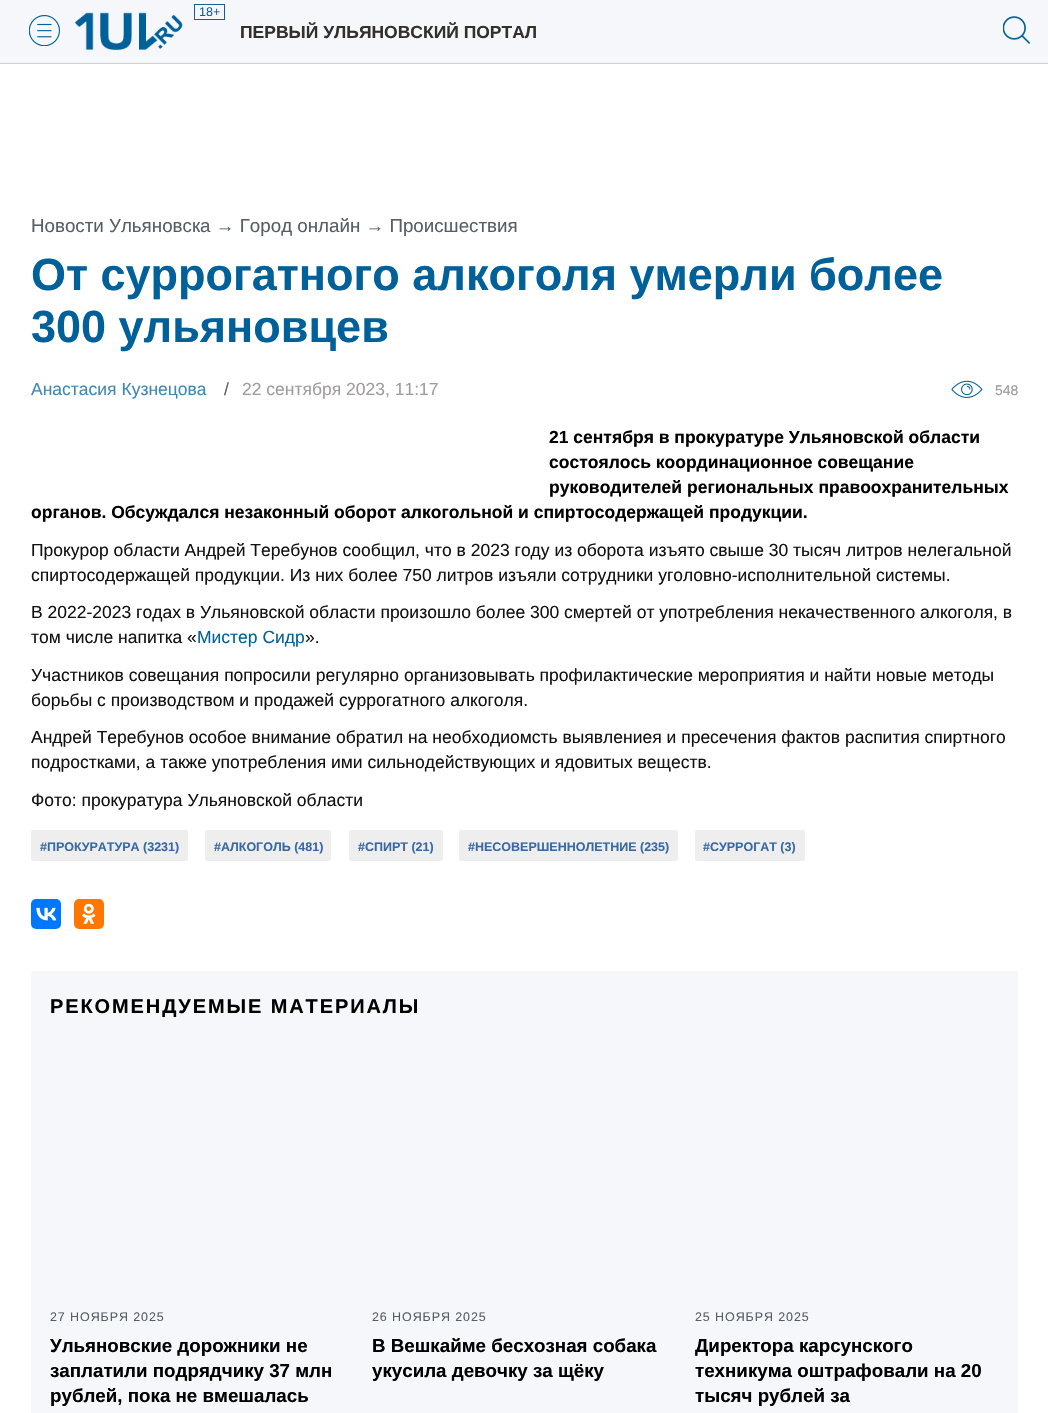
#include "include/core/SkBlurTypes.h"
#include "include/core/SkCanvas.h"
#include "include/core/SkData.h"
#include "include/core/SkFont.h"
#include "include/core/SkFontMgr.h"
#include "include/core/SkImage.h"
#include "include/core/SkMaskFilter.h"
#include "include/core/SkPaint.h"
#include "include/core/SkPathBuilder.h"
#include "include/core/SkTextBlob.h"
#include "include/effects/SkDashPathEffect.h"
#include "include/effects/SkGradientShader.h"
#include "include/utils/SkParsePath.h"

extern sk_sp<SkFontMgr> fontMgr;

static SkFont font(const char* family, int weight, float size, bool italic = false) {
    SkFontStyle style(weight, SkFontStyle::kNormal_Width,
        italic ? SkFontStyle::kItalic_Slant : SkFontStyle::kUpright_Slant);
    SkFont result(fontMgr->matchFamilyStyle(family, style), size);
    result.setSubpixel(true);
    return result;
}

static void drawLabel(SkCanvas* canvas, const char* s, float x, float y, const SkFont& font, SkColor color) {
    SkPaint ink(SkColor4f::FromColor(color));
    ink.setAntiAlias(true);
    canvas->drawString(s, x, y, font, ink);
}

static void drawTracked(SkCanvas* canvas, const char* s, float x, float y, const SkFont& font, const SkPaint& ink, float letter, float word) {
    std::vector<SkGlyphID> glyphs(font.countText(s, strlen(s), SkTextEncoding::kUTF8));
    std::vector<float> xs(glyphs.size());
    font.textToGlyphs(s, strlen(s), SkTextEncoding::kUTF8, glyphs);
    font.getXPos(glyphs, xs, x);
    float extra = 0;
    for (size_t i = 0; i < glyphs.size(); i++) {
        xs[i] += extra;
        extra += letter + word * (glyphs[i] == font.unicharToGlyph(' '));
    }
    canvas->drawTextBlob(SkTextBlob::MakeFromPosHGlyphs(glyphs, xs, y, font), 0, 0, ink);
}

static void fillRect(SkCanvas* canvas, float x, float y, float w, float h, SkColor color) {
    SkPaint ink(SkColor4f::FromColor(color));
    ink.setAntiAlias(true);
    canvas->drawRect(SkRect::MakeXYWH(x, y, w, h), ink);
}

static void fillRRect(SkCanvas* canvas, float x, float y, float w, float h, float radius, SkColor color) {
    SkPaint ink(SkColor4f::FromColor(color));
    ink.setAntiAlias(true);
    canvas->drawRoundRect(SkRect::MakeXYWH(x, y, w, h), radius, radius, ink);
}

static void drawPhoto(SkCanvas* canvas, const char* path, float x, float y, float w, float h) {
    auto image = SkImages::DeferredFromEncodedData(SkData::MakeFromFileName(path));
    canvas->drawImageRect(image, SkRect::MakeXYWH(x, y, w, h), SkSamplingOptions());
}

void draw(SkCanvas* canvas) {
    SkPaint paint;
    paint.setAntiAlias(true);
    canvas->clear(0xFFFFFFFF);
    fillRect(canvas, 0, 0, 1048, 63, 0xFFF5F7FA);
    fillRect(canvas, 0, 63, 1048, 1, 0xFFD1D0D0);
    drawPhoto(canvas, "assets/img1.png", 29, 15, 31, 31);
    drawPhoto(canvas, "assets/img2.png", 75, 12, 108, 38);
    paint.setStroke(true);
    paint.setStrokeWidth(1);
    paint.setColor(0xFF146096);
    canvas->drawRect(SkRect::MakeXYWH(194.5f, 4.5f, 30, 15), paint);
    SkFont font1 = font("Liberation Sans", 400, 12.5f);
    drawLabel(canvas, "18+", 199, 16, font1, 0xFF146096);
    SkFont font2 = font("Liberation Sans", 700, 17.5f);
    drawLabel(canvas, "ПЕРВЫЙ УЛЬЯНОВСКИЙ ПОРТАЛ", 240, 38, font2, 0xFF32302C);
    drawPhoto(canvas, "assets/img3.png", 1003, 16, 27, 28);
    SkFont font3 = font("Liberation Sans", 400, 18.75f);
    drawLabel(canvas, "Новости Ульяновска → Город онлайн → Проиcшествия", 31, 232, font3, 0xFF565D66);
    SkFont font4 = font("Liberation Sans", 700, 45);
    drawLabel(canvas, "От суррогатного алкоголя умерли более", 31, 290, font4, 0xFF006099);
    drawLabel(canvas, "300 ульяновцев", 31, 342, font4, 0xFF006099);
    SkFont font5 = font("Liberation Sans", 400, 17.5f);
    drawLabel(canvas, "Анастасия Кузнецова", 31, 395, font5, 0xFF4088B3);
    drawLabel(canvas, "/", 224, 395, font5, 0xFF565D66);
    drawLabel(canvas, "22 сентября 2023, 11:17", 242, 395, font5, 0xFF9F9B9F);
    drawPhoto(canvas, "assets/img4.png", 951, 380, 32, 18);
    SkFont font6 = font("Liberation Sans", 400, 14);
    drawLabel(canvas, "548", 995, 395, font6, 0xFF999999);
    drawLabel(canvas, "21 сентября в прокуратуре Ульяновской области", 549, 443, font2, 0xFF000000);
    drawLabel(canvas, "состоялось координационное совещание", 549, 468, font2, 0xFF000000);
    drawLabel(canvas, "руководителей региональных правоохранительных", 549, 493, font2, 0xFF000000);
    drawLabel(canvas, "органов. Обсуждался незаконный оборот алкогольной и спиртосодержащей продукции.", 31, 518, font2, 0xFF000000);
    drawLabel(canvas, "Прокурор области Андрей Теребунов сообщил, что в 2023 году из оборота изъято свыше 30 тысяч литров нелегальной", 31, 556, font5, 0xFF111111);
    drawLabel(canvas, "спиртосодержащей продукции. Из них более 750 литров изъяли сотрудники уголовно-исполнительной системы.", 31, 581, font5, 0xFF111111);
    drawLabel(canvas, "В 2022-2023 годах в Ульяновской области произошло более 300 смертей от употребления некачественного алкоголя, в", 31, 618, font5, 0xFF111111);
    drawLabel(canvas, "том числе напитка «", 31, 643, font5, 0xFF111111);
    drawLabel(canvas, "Мистер Сидр", 197, 643, font5, 0xFF006099);
    drawLabel(canvas, "».", 305, 643, font5, 0xFF111111);
    drawLabel(canvas, "Участников совещания попросили регулярно организовывать профилактические мероприятия и найти новые методы", 31, 681, font5, 0xFF111111);
    drawLabel(canvas, "борьбы с производством и продажей суррогатного алкоголя.", 31, 706, font5, 0xFF111111);
    drawLabel(canvas, "Андрей Теребунов особое внимание обратил на необходиомсть выявлениея и пресечения фактов распития спиртного", 31, 743, font5, 0xFF111111);
    drawLabel(canvas, "подростками, а также употребления ими сильнодействующих и ядовитых веществ.", 31, 768, font5, 0xFF111111);
    drawLabel(canvas, "Фото: прокуратура Ульяновской области", 31, 806, font5, 0xFF111111);
    fillRRect(canvas, 31, 830, 157, 31, 2.5f, 0xFFEEEEEE);
    SkFont font7 = font("Liberation Sans", 700, 12.5f);
    drawLabel(canvas, "#ПРОКУРАТУРА (3231)", 40, 851, font7, 0xFF3968A3);
    fillRRect(canvas, 205, 830, 126, 31, 2.5f, 0xFFEEEEEE);
    drawLabel(canvas, "#АЛКОГОЛЬ (481)", 214, 851, font7, 0xFF3968A3);
    fillRRect(canvas, 349, 830, 94, 31, 2.5f, 0xFFEEEEEE);
    drawLabel(canvas, "#СПИРТ (21)", 358, 851, font7, 0xFF3968A3);
    fillRRect(canvas, 459, 830, 219, 31, 2.5f, 0xFFEEEEEE);
    drawLabel(canvas, "#НЕСОВЕРШЕННОЛЕТНИЕ (235)", 468, 851, font7, 0xFF3968A3);
    fillRRect(canvas, 695, 830, 110, 31, 2.5f, 0xFFEEEEEE);
    drawLabel(canvas, "#СУРРОГАТ (3)", 703, 851, font7, 0xFF3968A3);
    fillRRect(canvas, 31, 899, 30, 30, 5, 0xFF0077FF);
    drawPhoto(canvas, "assets/img5.png", 36, 907, 21, 14);
    fillRRect(canvas, 74, 899, 30, 30, 5, 0xFFFF7700);
    drawPhoto(canvas, "assets/img6.png", 82, 903, 14, 21);
    fillRect(canvas, 31, 971, 987, 442, 0xFFF5F7FA);
    SkFont font8 = font("Liberation Sans", 700, 20);
    paint.setStroke(false);
    paint.setColor(0xFF000000);
    drawTracked(canvas, "РЕКОМЕНДУЕМЫЕ МАТЕРИАЛЫ", 50, 1013, font8, paint, 1.9f, 0);
    paint.setColor(0xFF565D66);
    drawTracked(canvas, "27 НОЯБРЯ 2025", 50, 1321, font1, paint, 0.9f, 0);
    SkFont font9 = font("Liberation Sans", 700, 18.75f);
    drawLabel(canvas, "Ульяновские дорожники не", 50, 1352, font9, 0xFF000000);
    drawLabel(canvas, "заплатили подрядчику 37 млн", 50, 1377, font9, 0xFF000000);
    drawLabel(canvas, "рублей, пока не вмешалась", 50, 1402, font9, 0xFF000000);
    drawTracked(canvas, "26 НОЯБРЯ 2025", 372, 1321, font1, paint, 0.9f, 0);
    drawLabel(canvas, "В Вешкайме бесхозная собака", 372, 1352, font9, 0xFF000000);
    drawLabel(canvas, "укусила девочку за щёку", 372, 1377, font9, 0xFF000000);
    drawTracked(canvas, "25 НОЯБРЯ 2025", 695, 1321, font1, paint, 0.9f, 0);
    drawLabel(canvas, "Директора карсунского", 695, 1352, font9, 0xFF000000);
    drawLabel(canvas, "техникума оштрафовали на 20", 695, 1377, font9, 0xFF000000);
    drawLabel(canvas, "тысяч рублей за", 695, 1402, font9, 0xFF000000);
}
